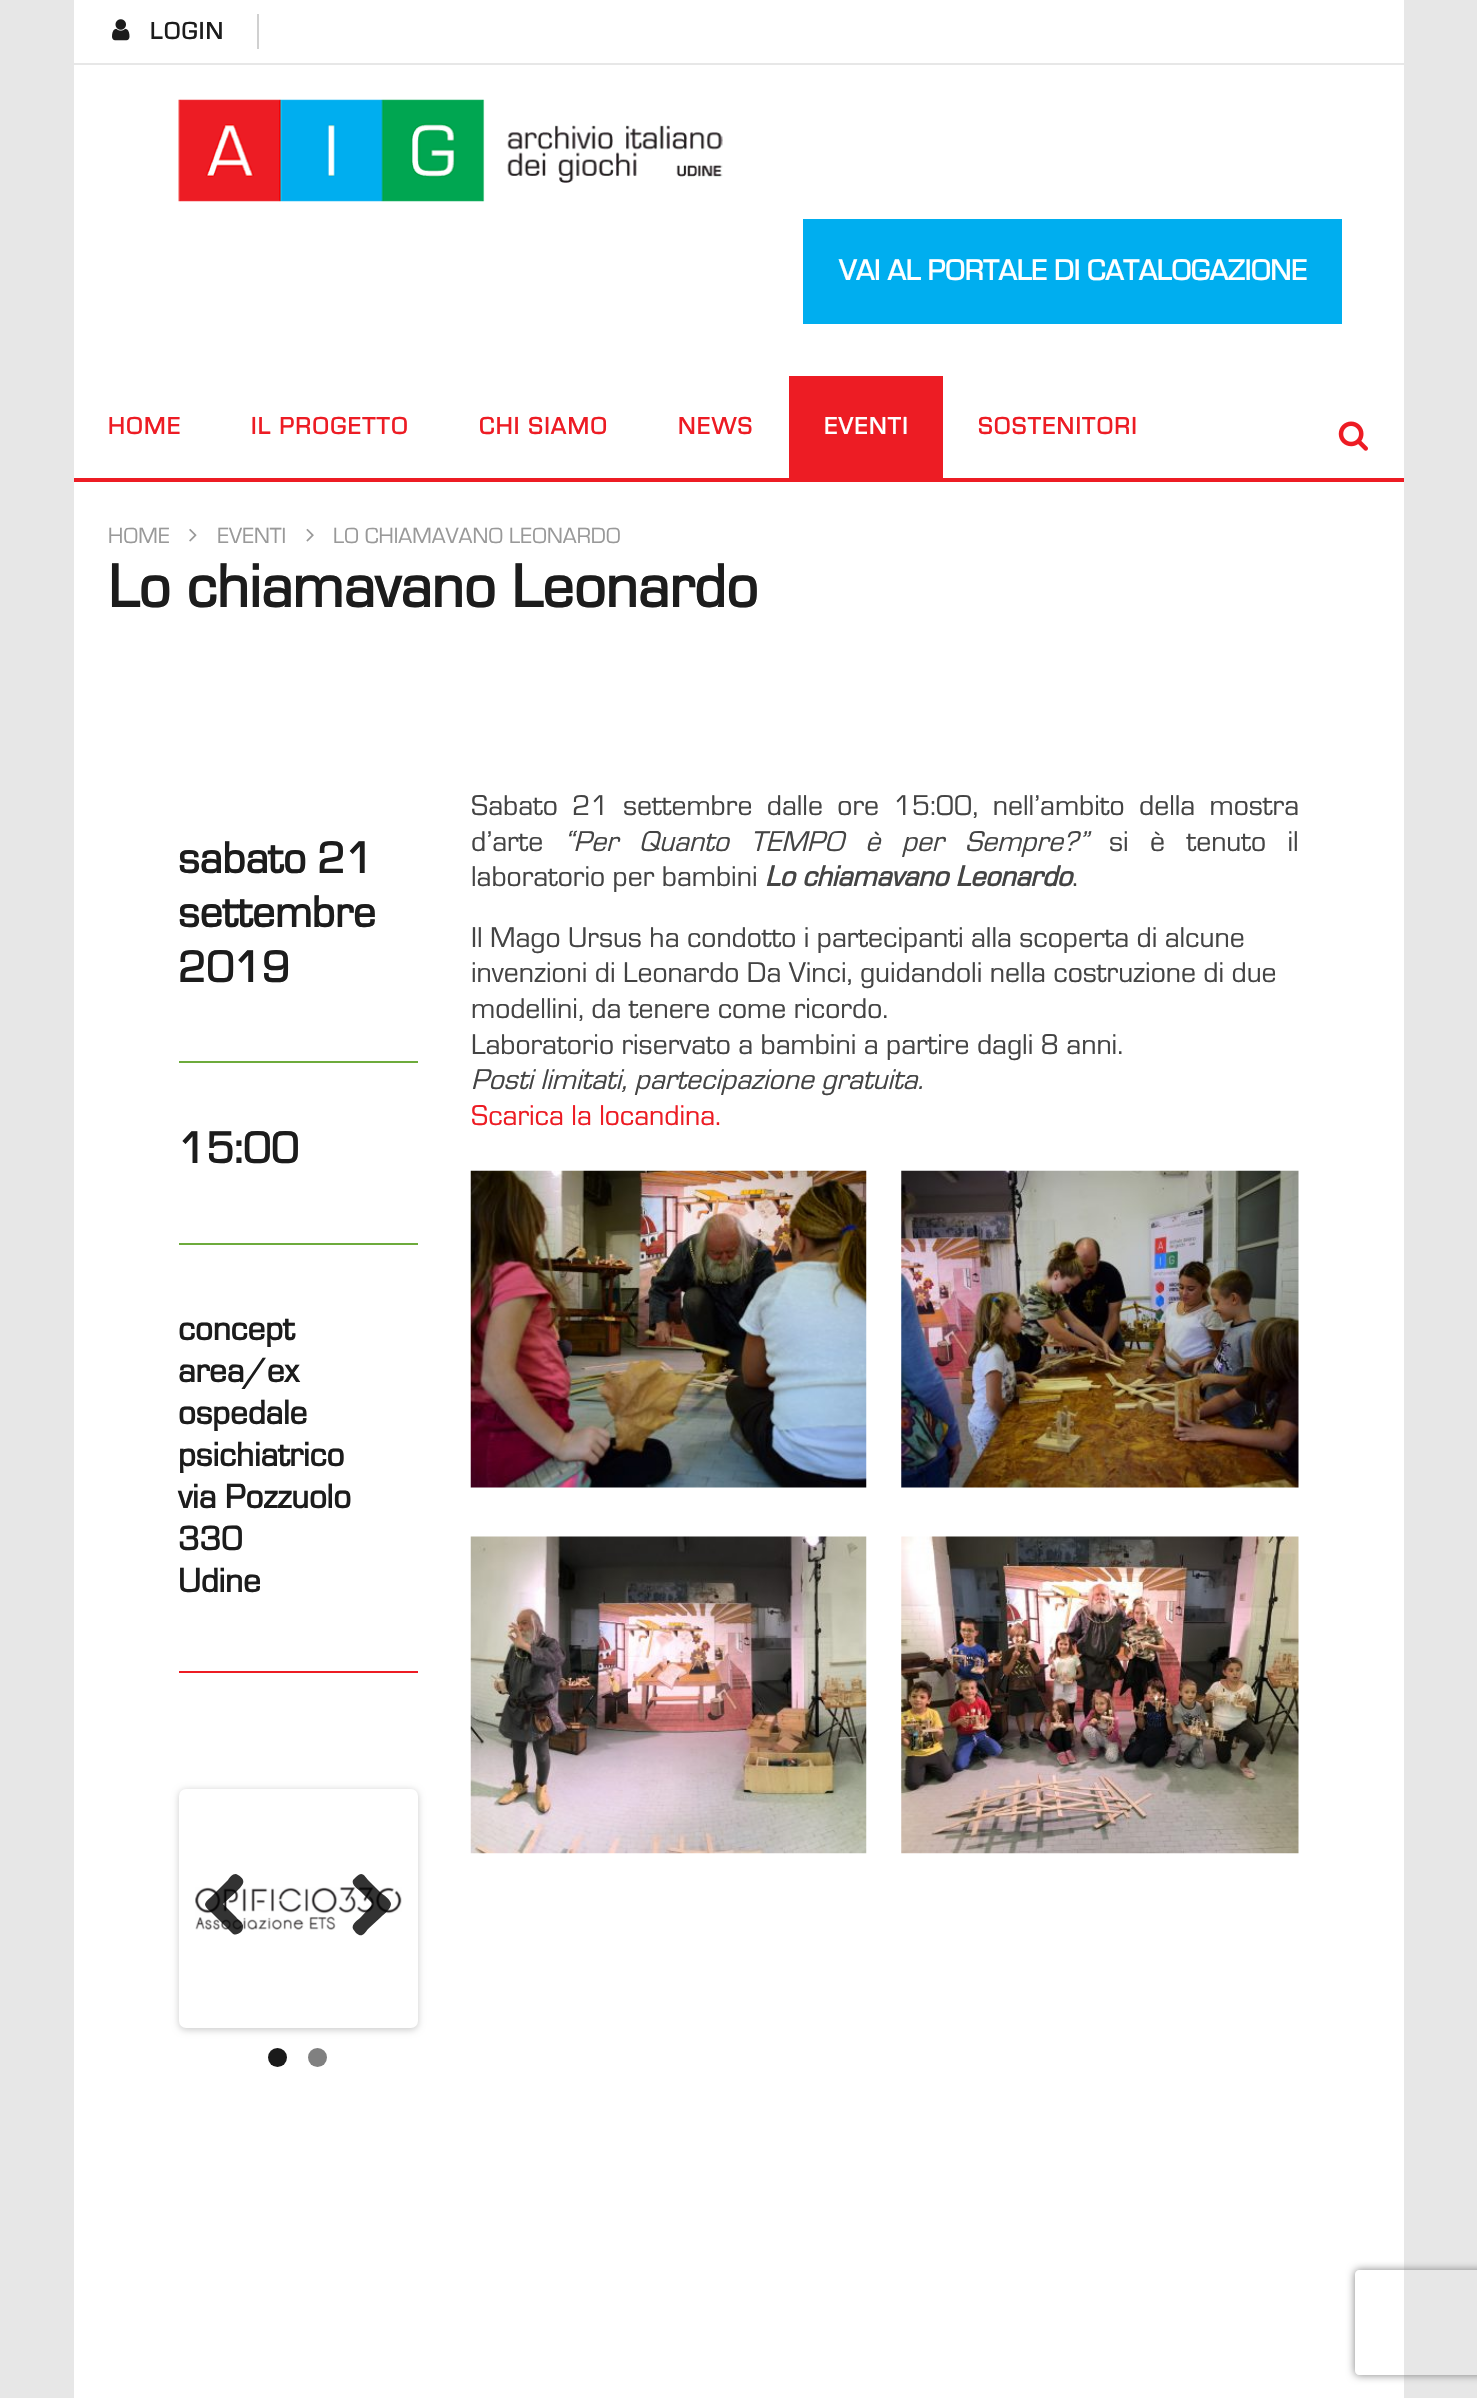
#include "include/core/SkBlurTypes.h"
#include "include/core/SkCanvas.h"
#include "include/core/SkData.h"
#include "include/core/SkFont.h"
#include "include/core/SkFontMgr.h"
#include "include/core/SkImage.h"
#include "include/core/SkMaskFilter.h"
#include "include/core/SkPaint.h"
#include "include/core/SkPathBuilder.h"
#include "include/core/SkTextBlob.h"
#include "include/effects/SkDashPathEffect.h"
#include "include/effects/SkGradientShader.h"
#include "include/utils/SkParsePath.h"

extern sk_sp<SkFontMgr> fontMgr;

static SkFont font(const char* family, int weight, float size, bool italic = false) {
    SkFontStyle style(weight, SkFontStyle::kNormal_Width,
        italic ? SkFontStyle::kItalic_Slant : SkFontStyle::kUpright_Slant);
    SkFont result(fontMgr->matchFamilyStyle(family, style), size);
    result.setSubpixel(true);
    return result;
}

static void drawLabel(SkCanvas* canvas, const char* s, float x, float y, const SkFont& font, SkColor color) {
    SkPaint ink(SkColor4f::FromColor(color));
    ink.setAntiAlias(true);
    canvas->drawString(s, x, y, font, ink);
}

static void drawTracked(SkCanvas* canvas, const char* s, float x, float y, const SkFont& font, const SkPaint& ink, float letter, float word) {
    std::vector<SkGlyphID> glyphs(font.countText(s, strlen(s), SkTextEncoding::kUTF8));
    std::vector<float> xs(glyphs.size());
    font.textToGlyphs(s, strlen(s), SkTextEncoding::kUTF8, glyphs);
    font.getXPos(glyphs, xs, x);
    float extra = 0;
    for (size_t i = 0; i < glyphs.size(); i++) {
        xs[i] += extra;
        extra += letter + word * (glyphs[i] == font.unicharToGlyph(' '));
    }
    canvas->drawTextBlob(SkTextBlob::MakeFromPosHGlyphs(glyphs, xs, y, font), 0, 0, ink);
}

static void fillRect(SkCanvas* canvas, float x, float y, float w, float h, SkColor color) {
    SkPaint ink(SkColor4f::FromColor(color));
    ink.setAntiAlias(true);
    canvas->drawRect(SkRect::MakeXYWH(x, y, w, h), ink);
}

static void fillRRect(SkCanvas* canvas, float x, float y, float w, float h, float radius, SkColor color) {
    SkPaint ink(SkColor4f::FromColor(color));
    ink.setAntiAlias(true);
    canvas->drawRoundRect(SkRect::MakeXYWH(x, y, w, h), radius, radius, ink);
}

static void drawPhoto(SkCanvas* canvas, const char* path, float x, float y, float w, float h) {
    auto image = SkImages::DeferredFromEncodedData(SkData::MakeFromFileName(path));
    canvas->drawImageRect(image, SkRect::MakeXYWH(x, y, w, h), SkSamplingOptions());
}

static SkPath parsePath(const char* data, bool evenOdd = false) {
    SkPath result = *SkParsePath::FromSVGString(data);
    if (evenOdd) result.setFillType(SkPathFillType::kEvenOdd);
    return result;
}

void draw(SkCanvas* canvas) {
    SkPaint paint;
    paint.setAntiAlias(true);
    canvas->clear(0xFFE7E7E7);
    fillRect(canvas, 74, 0, 1330, 2398, 0xFFFFFFFF);
    fillRect(canvas, 74, 63, 1330, 2, 0xFFE7E7E7);
    drawPhoto(canvas, "assets/img1.png", 112, 19, 18, 22);
    SkFont font1 = font("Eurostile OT", 700, 24.5f);
    paint.setColor(0xFF1C1C1C);
    drawTracked(canvas, "LOGIN", 150, 39, font1, paint, 1.75f, 0);
    fillRect(canvas, 257, 14, 2, 35, 0xFFD0D0D0);
    drawPhoto(canvas, "assets/img2.png", 178, 99, 545, 103);
    fillRect(canvas, 803, 219, 539, 105, 0xFF00AEEF);
    SkFont font2 = font("Eurostile OT", 700, 29.75f);
    drawLabel(canvas, "VAI AL PORTALE DI CATALOGAZIONE", 839, 280, font2, 0xFFFFFFFF);
    fillRect(canvas, 74, 478, 1330, 4, 0xFFED1C24);
    paint.setColor(0xFFED1C24);
    drawTracked(canvas, "HOME", 108, 434, font1, paint, 1.75f, 0);
    drawTracked(canvas, "IL PROGETTO", 251, 434, font1, paint, 1.75f, 0);
    drawTracked(canvas, "CHI SIAMO", 479, 434, font1, paint, 1.75f, 0);
    drawTracked(canvas, "NEWS", 678, 434, font1, paint, 1.75f, 0);
    fillRect(canvas, 789, 376, 154, 102, 0xFFED1C24);
    paint.setColor(0xFFFFFFFF);
    drawTracked(canvas, "EVENTI", 824, 434, font1, paint, 1.75f, 0);
    paint.setColor(0xFFED1C24);
    drawTracked(canvas, "SOSTENITORI", 978, 434, font1, paint, 1.75f, 0);
    drawPhoto(canvas, "assets/img3.png", 1338, 421, 30, 30);
    SkFont font3 = font("Eurostile OT", 400, 22.75f);
    drawLabel(canvas, "HOME", 108, 543, font3, 0xFF999999);
    drawPhoto(canvas, "assets/img4.png", 189, 528, 8, 14);
    drawLabel(canvas, "EVENTI", 217, 543, font3, 0xFF999999);
    drawPhoto(canvas, "assets/img5.png", 306, 528, 8, 14);
    drawLabel(canvas, "LO CHIAMAVANO LEONARDO", 333, 543, font3, 0xFF999999);
    SkFont font4 = font("Eurostile OT", 700, 63);
    drawLabel(canvas, "Lo chiamavano Leonardo", 108, 607, font4, 0xFF1C1C1C);
    SkFont font5 = font("Eurostile OT", 700, 45.5f);
    drawLabel(canvas, "sabato 21", 178, 873, font5, 0xFF1C1C1C);
    drawLabel(canvas, "settembre", 178, 927, font5, 0xFF1C1C1C);
    drawLabel(canvas, "2019", 178, 982, font5, 0xFF1C1C1C);
    fillRect(canvas, 179, 1061, 239, 2, 0xFF6DAB3C);
    drawLabel(canvas, "15:00", 178, 1163, font5, 0xFF1C1C1C);
    fillRect(canvas, 179, 1243, 239, 2, 0xFF6DAB3C);
    SkFont font6 = font("Eurostile OT", 700, 35);
    drawLabel(canvas, "concept", 178, 1340, font6, 0xFF1C1C1C);
    drawLabel(canvas, "area/ex", 178, 1382, font6, 0xFF1C1C1C);
    drawLabel(canvas, "ospedale", 178, 1424, font6, 0xFF1C1C1C);
    drawLabel(canvas, "psichiatrico", 178, 1466, font6, 0xFF1C1C1C);
    drawLabel(canvas, "via Pozzuolo", 178, 1508, font6, 0xFF1C1C1C);
    drawLabel(canvas, "330", 178, 1550, font6, 0xFF1C1C1C);
    drawLabel(canvas, "Udine", 178, 1592, font6, 0xFF1C1C1C);
    fillRect(canvas, 179, 1671, 239, 2, 0xFFED1C24);
    paint.setColor(0x33000000);
    paint.setMaskFilter(SkMaskFilter::MakeBlur(kNormal_SkBlurStyle, 3.5f));
    canvas->drawRoundRect(SkRect::MakeXYWH(179, 1790, 239, 240), 7, 7, paint);
    paint.setMaskFilter(nullptr);
    fillRRect(canvas, 179, 1789, 239, 239, 7, 0xFFFFFFFF);
    drawPhoto(canvas, "assets/img6.png", 195, 1887, 207, 43);
    paint.setColor(0xCC000000);
    canvas->drawPath(parsePath("M232 1933L211 1912C203 1905 203 1904 211 1897L228 1880C230 1877 234 1872 238 1875C248 1881 242 1886 236 1892L223 1904L236 1917C238 1920 244 1923 243 1927C243 1929 242 1931 241 1932C238 1934 235 1936 232 1933Z"), paint);
    canvas->drawPath(parsePath("M391 1904C391 1909 384 1914 381 1917L368 1929C364 1934 362 1938 356 1933L353 1929C351 1924 358 1920 361 1917L373 1904L361 1892C358 1889 351 1885 353 1880L356 1877C362 1871 364 1875 368 1880L381 1893C384 1895 391 1900 391 1904Z"), paint);
    paint.setColor(0xFF1A1A1A);
    canvas->drawCircle(277.5f, 2057.5f, 9.5f, paint);
    paint.setColor(0xFF808080);
    canvas->drawCircle(317.5f, 2057.5f, 9.5f, paint);
    SkFont font7 = font("Eurostile OT", 400, 29.75f);
    paint.setColor(0xFF444444);
    drawTracked(canvas, "Sabato 21 settembre dalle ore 15:00, nell’ambito della mostra", 471, 815, font7, paint, 0, 7);
    drawLabel(canvas, "d’arte", 471, 851, font7, 0xFF444444);
    SkFont font8 = font("Eurostile OT", 400, 29.75f, true);
    drawTracked(canvas, "“Per Quanto TEMPO è per Sempre?”", 564, 851, font8, paint, 0, 14);
    drawTracked(canvas, "si è tenuto il", 1109, 851, font7, paint, 0, 14);
    drawLabel(canvas, "laboratorio per bambini", 471, 886, font7, 0xFF444444);
    SkFont font9 = font("Eurostile OT", 700, 29.75f, true);
    drawLabel(canvas, "Lo chiamavano Leonardo", 765, 886, font9, 0xFF444444);
    drawLabel(canvas, ".", 1072, 886, font7, 0xFF444444);
    drawLabel(canvas, "Il Mago Ursus ha condotto i partecipanti alla scoperta di alcune", 471, 947, font7, 0xFF444444);
    drawLabel(canvas, "invenzioni di Leonardo Da Vinci, guidandoli nella costruzione di due", 471, 982, font7, 0xFF444444);
    drawLabel(canvas, "modellini, da tenere come ricordo.", 471, 1018, font7, 0xFF444444);
    drawLabel(canvas, "Laboratorio riservato a bambini a partire dagli 8 anni.", 471, 1054, font7, 0xFF444444);
    drawLabel(canvas, "Posti limitati, partecipazione gratuita.", 471, 1089, font8, 0xFF444444);
    drawLabel(canvas, "Scarica la locandina.", 471, 1125, font7, 0xFFED1C24);
    drawPhoto(canvas, "assets/img7.png", 470, 1170, 397, 318);
    drawPhoto(canvas, "assets/img8.png", 901, 1170, 398, 318);
    drawPhoto(canvas, "assets/img9.png", 470, 1536, 397, 318);
    drawPhoto(canvas, "assets/img10.png", 901, 1536, 398, 318);
    canvas->save();
    canvas->clipPath(parsePath("M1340 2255H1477V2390H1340ZM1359 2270H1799C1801 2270 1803 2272 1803 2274V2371C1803 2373 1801 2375 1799 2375H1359C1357 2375 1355 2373 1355 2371V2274C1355 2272 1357 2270 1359 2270Z", true), true);
    paint.setColor(0xFF808080);
    paint.setMaskFilter(SkMaskFilter::MakeBlur(kNormal_SkBlurStyle, 4.5f));
    canvas->drawRoundRect(SkRect::MakeXYWH(1355, 2270, 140, 105), 4, 4, paint);
    paint.setMaskFilter(nullptr);
    canvas->restore();
}
